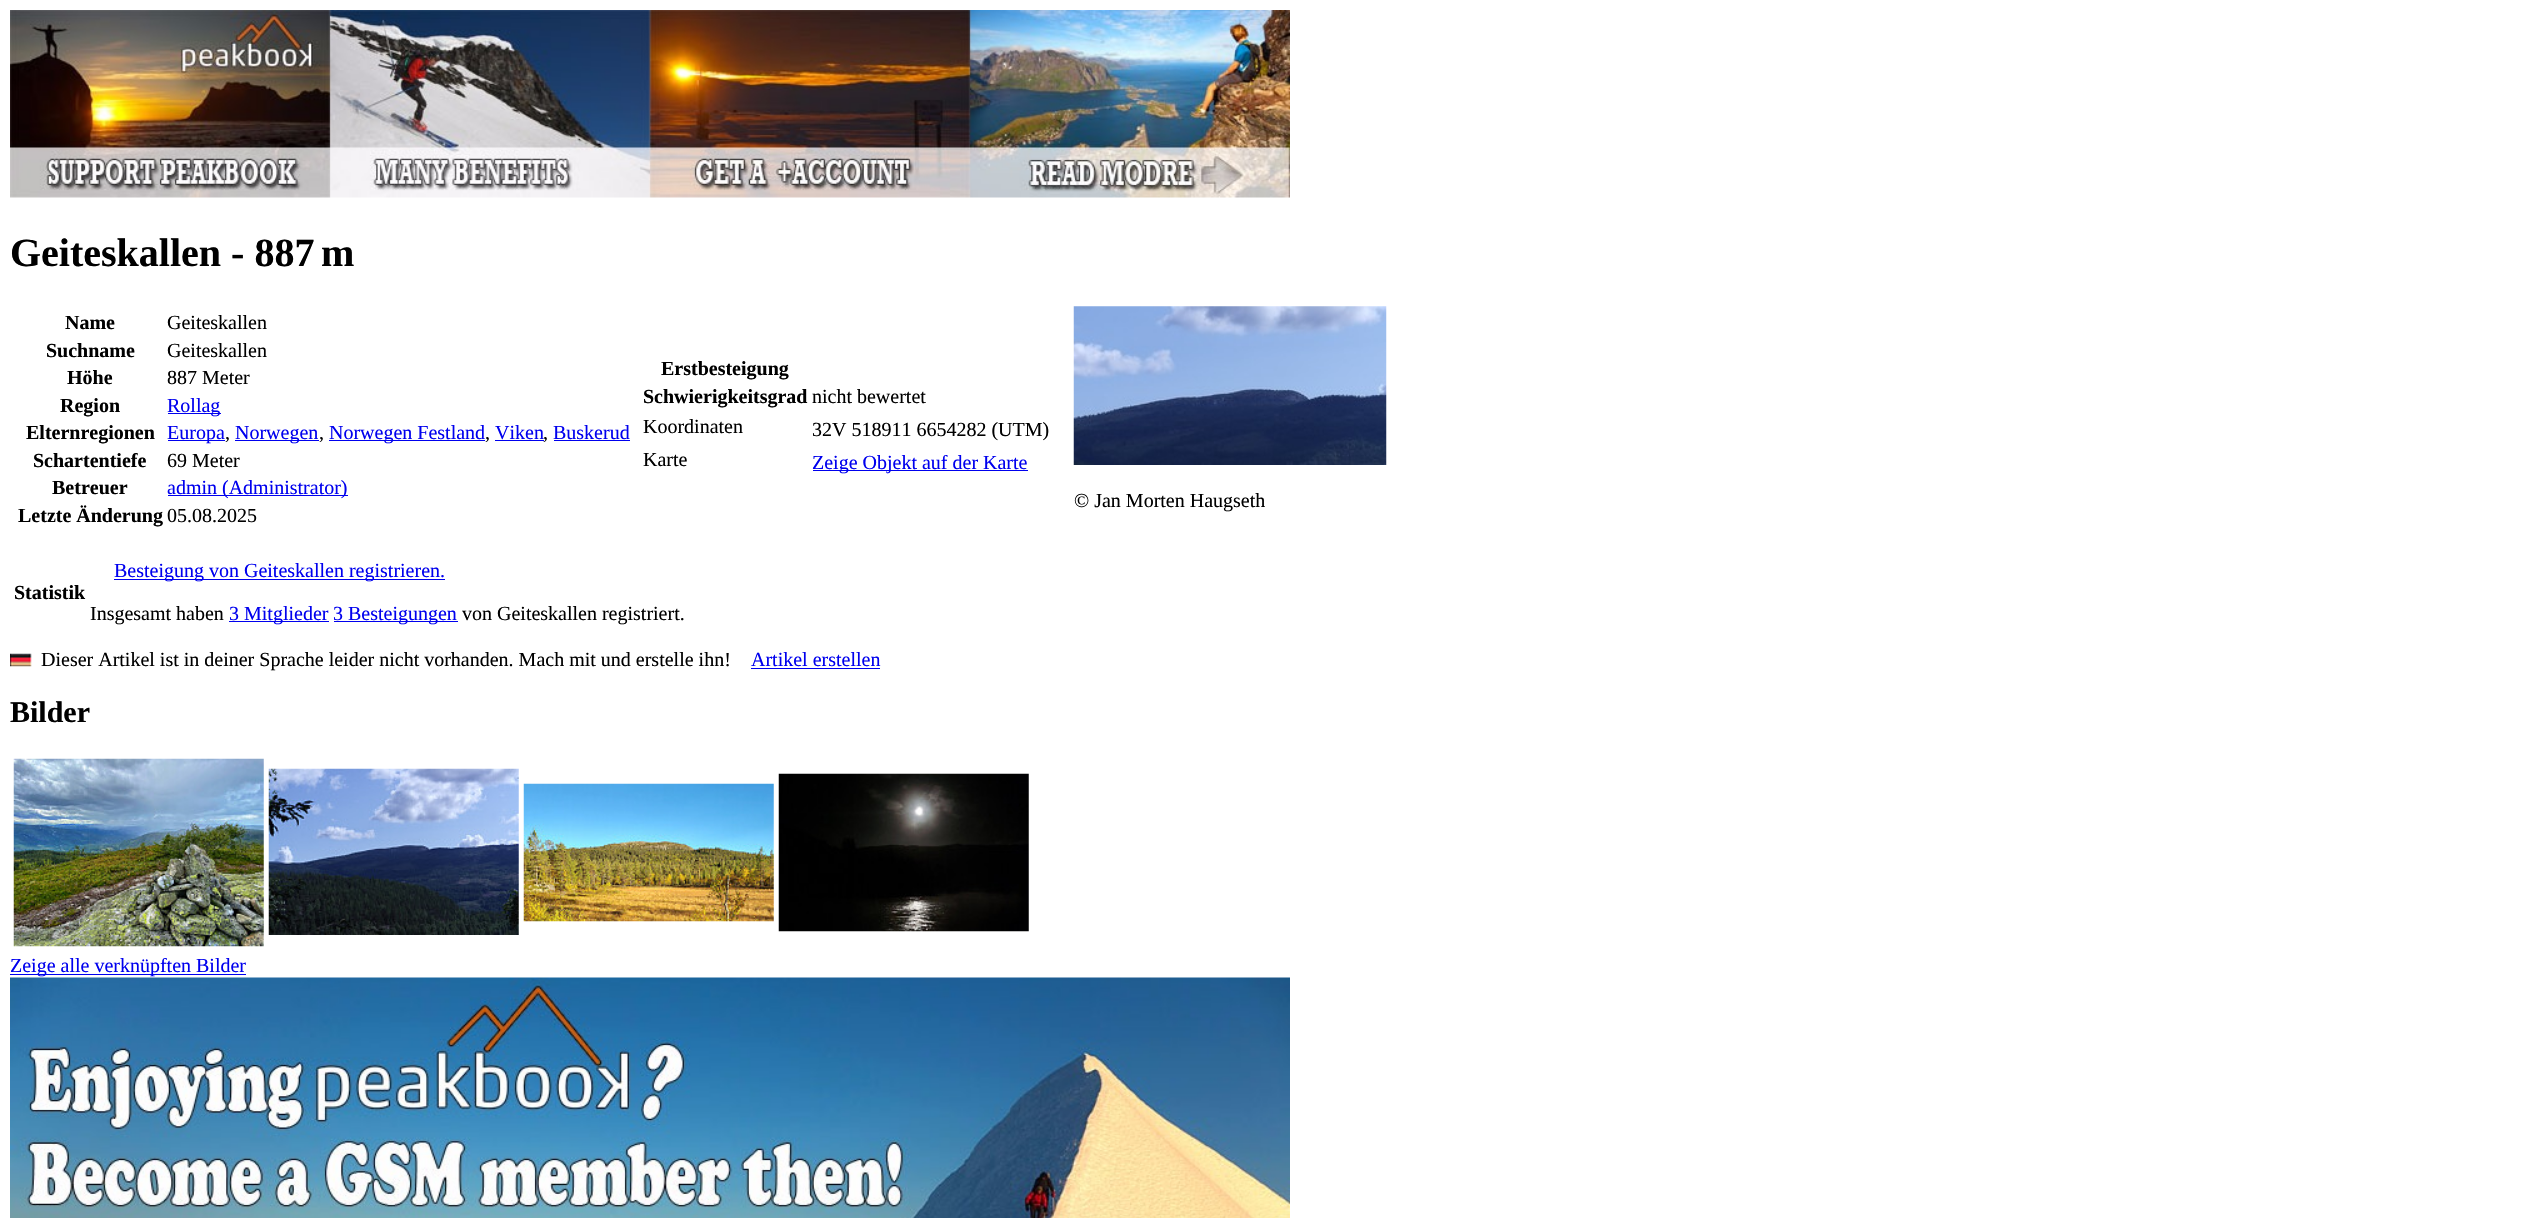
#include "include/core/SkBlurTypes.h"
#include "include/core/SkCanvas.h"
#include "include/core/SkData.h"
#include "include/core/SkFont.h"
#include "include/core/SkFontMgr.h"
#include "include/core/SkImage.h"
#include "include/core/SkMaskFilter.h"
#include "include/core/SkPaint.h"
#include "include/core/SkPathBuilder.h"
#include "include/core/SkTextBlob.h"
#include "include/effects/SkDashPathEffect.h"
#include "include/effects/SkGradientShader.h"
#include "include/utils/SkParsePath.h"

extern sk_sp<SkFontMgr> fontMgr;

static SkFont font(const char* family, int weight, float size, bool italic = false) {
    SkFontStyle style(weight, SkFontStyle::kNormal_Width,
        italic ? SkFontStyle::kItalic_Slant : SkFontStyle::kUpright_Slant);
    SkFont result(fontMgr->matchFamilyStyle(family, style), size);
    result.setSubpixel(true);
    return result;
}

static void drawLabel(SkCanvas* canvas, const char* s, float x, float y, const SkFont& font, SkColor color) {
    SkPaint ink(SkColor4f::FromColor(color));
    ink.setAntiAlias(true);
    canvas->drawString(s, x, y, font, ink);
}

static void fillRect(SkCanvas* canvas, float x, float y, float w, float h, SkColor color) {
    SkPaint ink(SkColor4f::FromColor(color));
    ink.setAntiAlias(true);
    canvas->drawRect(SkRect::MakeXYWH(x, y, w, h), ink);
}

static void drawPhoto(SkCanvas* canvas, const char* path, float x, float y, float w, float h) {
    auto image = SkImages::DeferredFromEncodedData(SkData::MakeFromFileName(path));
    canvas->drawImageRect(image, SkRect::MakeXYWH(x, y, w, h), SkSamplingOptions());
}

void draw(SkCanvas* canvas) {
    SkPaint paint;
    paint.setAntiAlias(true);
    canvas->clear(0xFFFFFFFF);
    drawPhoto(canvas, "assets/img1.png", 10, 10, 1280, 188);
    SkFont font1 = font("Liberation Serif", 700, 40);
    drawLabel(canvas, "Geiteskallen - 887", 10, 266, font1, 0xFF000000);
    drawLabel(canvas, "m", 321, 266, font1, 0xFF000000);
    SkFont font2 = font("Liberation Serif", 700, 20);
    drawLabel(canvas, "Name", 65, 329, font2, 0xFF000000);
    SkFont font3 = font("Liberation Serif", 400, 20);
    drawLabel(canvas, "Geiteskallen", 167, 329, font3, 0xFF000000);
    drawLabel(canvas, "Suchname", 46, 357, font2, 0xFF000000);
    drawLabel(canvas, "Geiteskallen", 167, 357, font3, 0xFF000000);
    drawLabel(canvas, "Höhe", 67, 384, font2, 0xFF000000);
    drawLabel(canvas, "887 Meter", 167, 384, font3, 0xFF000000);
    drawLabel(canvas, "Region", 60, 412, font2, 0xFF000000);
    fillRect(canvas, 168, 413, 53, 1, 0xFF0000EE);
    drawLabel(canvas, "Rollag", 167, 412, font3, 0xFF0000EE);
    drawLabel(canvas, "Elternregionen", 26, 439, font2, 0xFF000000);
    fillRect(canvas, 168, 440, 57, 1, 0xFF0000EE);
    drawLabel(canvas, "Europa", 167, 439, font3, 0xFF0000EE);
    drawLabel(canvas, ",", 225, 439, font3, 0xFF000000);
    fillRect(canvas, 235, 440, 84, 1, 0xFF0000EE);
    drawLabel(canvas, "Norwegen", 235, 439, font3, 0xFF0000EE);
    drawLabel(canvas, ",", 319, 439, font3, 0xFF000000);
    fillRect(canvas, 329, 440, 156, 1, 0xFF0000EE);
    drawLabel(canvas, "Norwegen Festland", 329, 439, font3, 0xFF0000EE);
    drawLabel(canvas, ",", 485, 439, font3, 0xFF000000);
    drawLabel(canvas, "Viken", 495, 439, font3, 0xFF0000EE);
    fillRect(canvas, 495, 440, 49, 1, 0xFF0000EE);
    drawLabel(canvas, ",", 543, 439, font3, 0xFF000000);
    drawLabel(canvas, "Buskerud", 553, 439, font3, 0xFF0000EE);
    fillRect(canvas, 554, 440, 76, 1, 0xFF0000EE);
    drawLabel(canvas, "Schartentiefe", 33, 467, font2, 0xFF000000);
    drawLabel(canvas, "69 Meter", 167, 467, font3, 0xFF000000);
    drawLabel(canvas, "Betreuer", 52, 494, font2, 0xFF000000);
    fillRect(canvas, 168, 495, 180, 1, 0xFF0000EE);
    drawLabel(canvas, "admin (Administrator)", 167, 494, font3, 0xFF0000EE);
    drawLabel(canvas, "Letzte Änderung", 18, 522, font2, 0xFF000000);
    drawLabel(canvas, "05.08.2025", 167, 522, font3, 0xFF000000);
    drawLabel(canvas, "Erstbesteigung", 661, 375, font2, 0xFF000000);
    drawLabel(canvas, "Schwierigkeitsgrad", 643, 403, font2, 0xFF000000);
    drawLabel(canvas, "nicht bewertet", 812, 403, font3, 0xFF000000);
    drawLabel(canvas, "Koordinaten", 643, 433, font3, 0xFF000000);
    drawLabel(canvas, "32V 518911 6654282 (UTM)", 812, 436, font3, 0xFF000000);
    drawLabel(canvas, "Karte", 643, 466, font3, 0xFF000000);
    fillRect(canvas, 813, 470, 215, 1, 0xFF0000EE);
    drawLabel(canvas, "Zeige Objekt auf der Karte", 812, 469, font3, 0xFF0000EE);
    drawPhoto(canvas, "assets/img2.png", 1073, 306, 314, 159);
    drawLabel(canvas, "© Jan Morten Haugseth", 1074, 507, font3, 0xFF000000);
    drawLabel(canvas, "Statistik", 14, 599, font2, 0xFF000000);
    fillRect(canvas, 114, 579, 331, 1, 0xFF0000EE);
    drawLabel(canvas, "Besteigung von Geiteskallen registrieren.", 114, 577, font3, 0xFF0000EE);
    drawLabel(canvas, "Insgesamt haben", 90, 620, font3, 0xFF000000);
    fillRect(canvas, 229, 621, 100, 1, 0xFF0000EE);
    drawLabel(canvas, "3 Mitglieder", 229, 620, font3, 0xFF0000EE);
    fillRect(canvas, 334, 621, 124, 1, 0xFF0000EE);
    drawLabel(canvas, "3 Besteigungen", 333, 620, font3, 0xFF0000EE);
    drawLabel(canvas, "von Geiteskallen registriert.", 462, 620, font3, 0xFF000000);
    drawPhoto(canvas, "assets/img3.png", 10, 653, 22, 14);
    drawLabel(canvas, "Dieser Artikel ist in deiner Sprache leider nicht vorhanden. Mach mit und erstelle ihn!", 41, 666, font3, 0xFF000000);
    drawLabel(canvas, "Artikel erstellen", 751, 666, font3, 0xFF0000EE);
    fillRect(canvas, 751, 668, 129, 1, 0xFF0000EE);
    SkFont font4 = font("Liberation Serif", 700, 30);
    drawLabel(canvas, "Bilder", 10, 722, font4, 0xFF000000);
    drawPhoto(canvas, "assets/img4.png", 13, 758, 251, 189);
    drawPhoto(canvas, "assets/img5.png", 268, 768, 251, 167);
    drawPhoto(canvas, "assets/img6.png", 523, 783, 251, 139);
    drawPhoto(canvas, "assets/img7.png", 778, 773, 251, 159);
    fillRect(canvas, 10, 974, 236, 1, 0xFF0000EE);
    drawLabel(canvas, "Zeige alle verknüpften Bilder", 10, 972, font3, 0xFF0000EE);
    drawPhoto(canvas, "assets/img8.png", 10, 977, 1280, 241);
}
